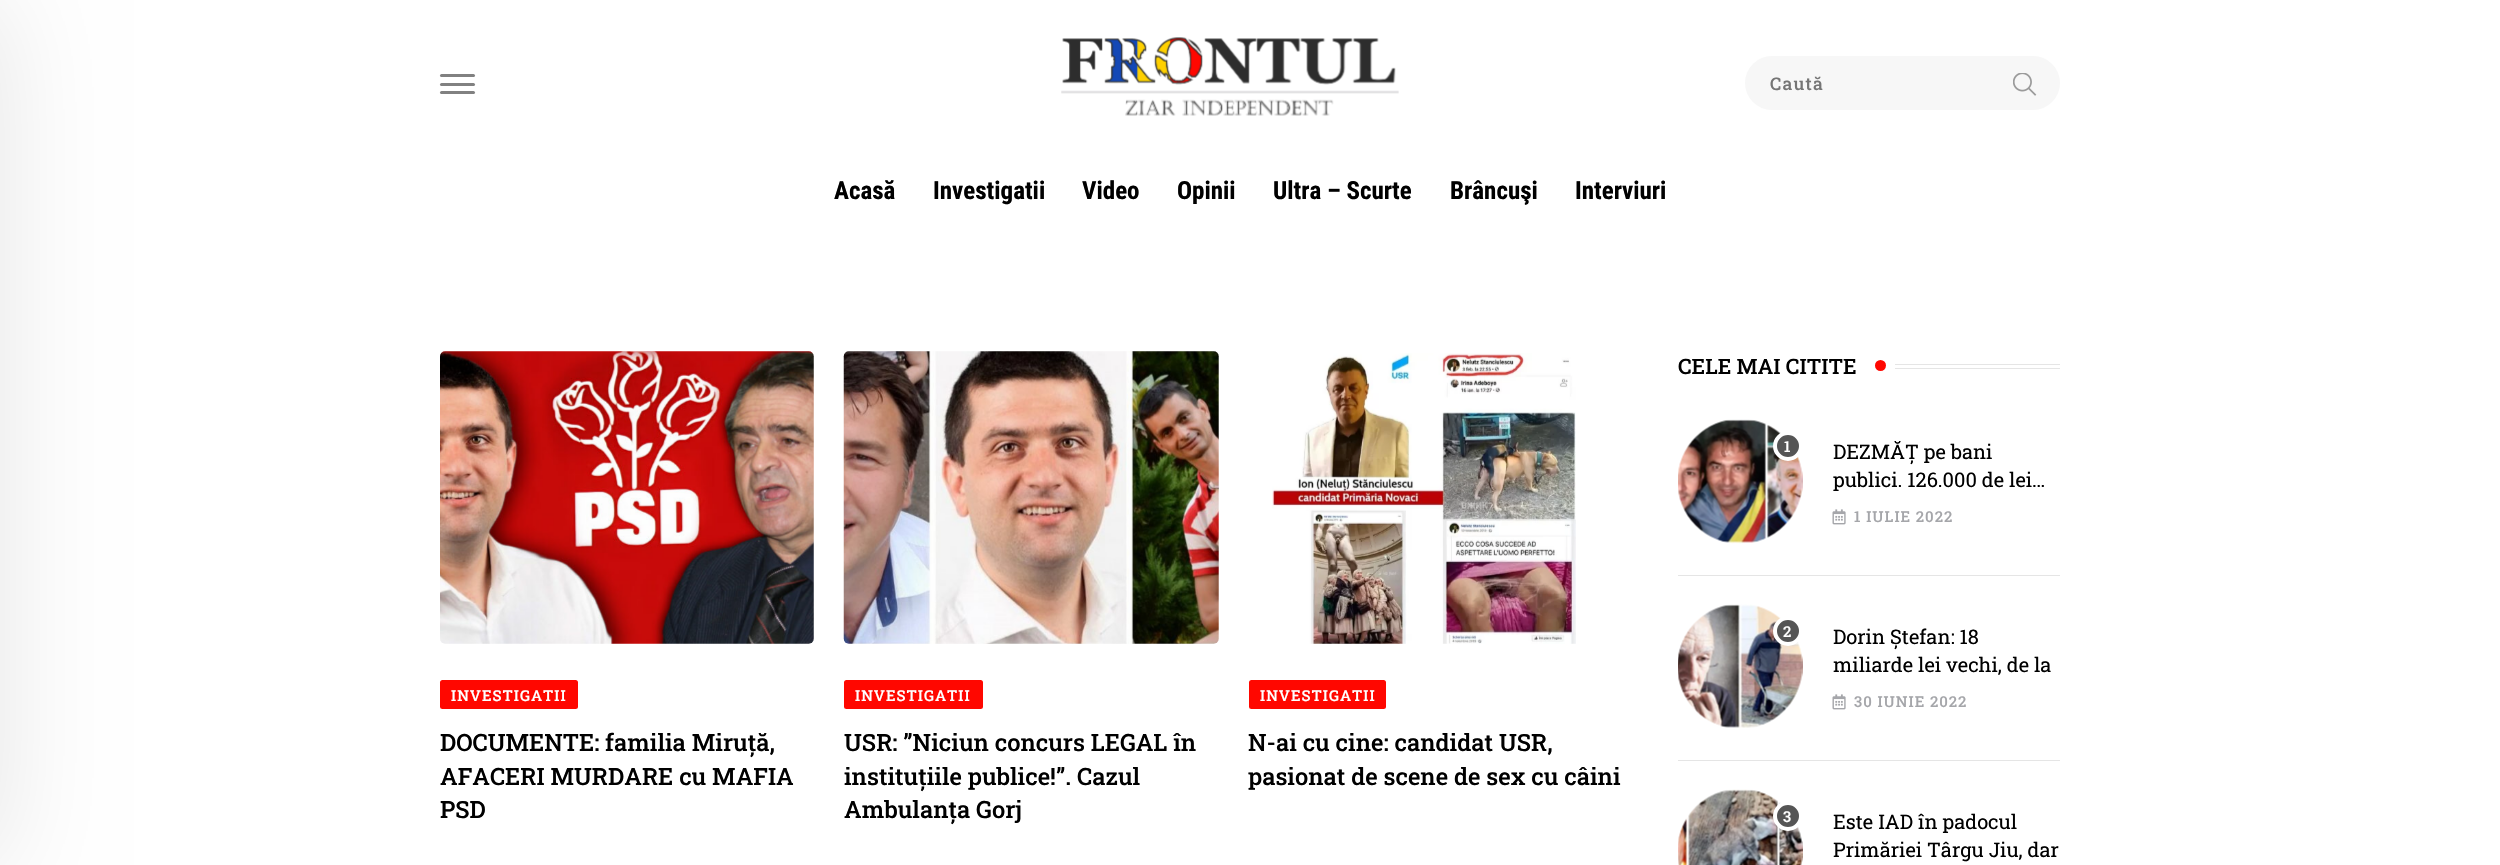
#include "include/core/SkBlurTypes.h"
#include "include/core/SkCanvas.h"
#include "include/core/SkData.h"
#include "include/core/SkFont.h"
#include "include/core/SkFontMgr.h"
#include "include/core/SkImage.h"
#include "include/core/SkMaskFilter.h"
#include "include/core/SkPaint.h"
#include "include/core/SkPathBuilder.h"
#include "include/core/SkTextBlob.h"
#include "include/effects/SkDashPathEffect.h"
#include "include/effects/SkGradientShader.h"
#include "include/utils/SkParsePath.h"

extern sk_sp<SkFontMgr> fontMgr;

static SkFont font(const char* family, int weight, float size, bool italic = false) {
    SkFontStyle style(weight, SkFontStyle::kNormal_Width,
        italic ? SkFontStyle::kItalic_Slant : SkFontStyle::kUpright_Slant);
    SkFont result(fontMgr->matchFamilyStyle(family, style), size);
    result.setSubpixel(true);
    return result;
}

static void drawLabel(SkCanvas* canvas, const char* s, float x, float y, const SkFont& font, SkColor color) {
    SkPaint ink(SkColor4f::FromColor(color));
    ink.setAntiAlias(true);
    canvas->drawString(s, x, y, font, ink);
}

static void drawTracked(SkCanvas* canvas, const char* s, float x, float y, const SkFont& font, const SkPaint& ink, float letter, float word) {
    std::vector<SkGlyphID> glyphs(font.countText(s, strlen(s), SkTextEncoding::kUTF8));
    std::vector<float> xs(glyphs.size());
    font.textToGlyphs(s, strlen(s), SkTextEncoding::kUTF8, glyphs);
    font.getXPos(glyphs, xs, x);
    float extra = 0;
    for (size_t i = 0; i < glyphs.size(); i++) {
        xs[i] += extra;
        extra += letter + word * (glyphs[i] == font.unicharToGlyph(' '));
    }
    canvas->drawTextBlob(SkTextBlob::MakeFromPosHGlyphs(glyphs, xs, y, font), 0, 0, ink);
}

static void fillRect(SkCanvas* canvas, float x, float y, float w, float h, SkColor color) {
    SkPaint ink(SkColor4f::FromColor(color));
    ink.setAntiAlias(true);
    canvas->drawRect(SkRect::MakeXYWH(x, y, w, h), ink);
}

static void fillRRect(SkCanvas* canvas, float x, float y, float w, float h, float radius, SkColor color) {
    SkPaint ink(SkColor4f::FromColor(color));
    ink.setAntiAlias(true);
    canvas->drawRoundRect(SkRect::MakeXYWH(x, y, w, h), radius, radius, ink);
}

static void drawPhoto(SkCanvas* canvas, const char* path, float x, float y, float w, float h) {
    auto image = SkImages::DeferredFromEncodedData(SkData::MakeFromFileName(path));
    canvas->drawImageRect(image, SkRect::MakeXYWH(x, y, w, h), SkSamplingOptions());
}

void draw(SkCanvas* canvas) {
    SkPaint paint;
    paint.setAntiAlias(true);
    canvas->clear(0xFFFFFFFF);
    paint.setColor(0x1A000000);
    paint.setMaskFilter(SkMaskFilter::MakeBlur(kNormal_SkBlurStyle, 56));
    canvas->drawRect(SkRect::MakeXYWH(-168, 0, 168, 865), paint);
    paint.setMaskFilter(nullptr);
    fillRRect(canvas, 440, 74, 35, 3, 1.5f, 0xFF818181);
    fillRRect(canvas, 440, 83, 35, 3, 1.5f, 0xFF818181);
    fillRRect(canvas, 440, 91, 35, 3, 1.5f, 0xFF818181);
    drawPhoto(canvas, "assets/img1.png", 1061, 37, 338, 79);
    fillRRect(canvas, 1745, 56, 315, 54, 27, 0xFFF7F7F7);
    SkFont font1 = font("Roboto Slab", 500, 17.5f);
    paint.setColor(0xFF757575);
    drawTracked(canvas, "Caută", 1770, 90, font1, paint, 1.25f, 0);
    drawPhoto(canvas, "assets/img2.png", 2013, 73, 24, 23);
    SkFont font2 = font("Roboto Condensed", 700, 25);
    drawLabel(canvas, "Acasă", 834, 199, font2, 0xFF000000);
    drawLabel(canvas, "Investigatii", 933, 199, font2, 0xFF000000);
    drawLabel(canvas, "Video", 1082, 199, font2, 0xFF000000);
    drawLabel(canvas, "Opinii", 1177, 199, font2, 0xFF000000);
    drawLabel(canvas, "Ultra – Scurte", 1273, 199, font2, 0xFF000000);
    drawLabel(canvas, "Brâncuşi", 1450, 199, font2, 0xFF000000);
    drawLabel(canvas, "Interviuri", 1575, 199, font2, 0xFF000000);
    drawPhoto(canvas, "assets/img3.png", 440, 351, 374, 293);
    fillRRect(canvas, 440, 680, 138, 29, 2.5f, 0xFFFF0700);
    SkFont font3 = font("Roboto Slab", 500, 15);
    paint.setColor(0xFFFFFFFF);
    drawTracked(canvas, "INVESTIGATII", 451, 701, font3, paint, 1, 0);
    SkFont font4 = font("Roboto Slab", 500, 23.75f);
    drawLabel(canvas, "DOCUMENTE: familia Miruță,", 440, 751, font4, 0xFF000000);
    drawLabel(canvas, "AFACERI MURDARE cu MAFIA", 440, 785, font4, 0xFF000000);
    drawLabel(canvas, "PSD", 440, 818, font4, 0xFF000000);
    drawPhoto(canvas, "assets/img4.png", 843, 351, 376, 293);
    fillRRect(canvas, 844, 680, 139, 29, 2.5f, 0xFFFF0700);
    drawTracked(canvas, "INVESTIGATII", 855, 701, font3, paint, 1, 0);
    drawLabel(canvas, "USR: ”Niciun concurs LEGAL în", 844, 751, font4, 0xFF000000);
    drawLabel(canvas, "instituțiile publice!”. Cazul", 844, 785, font4, 0xFF000000);
    drawLabel(canvas, "Ambulanța Gorj", 844, 818, font4, 0xFF000000);
    drawPhoto(canvas, "assets/img5.png", 1272, 353, 304, 291);
    fillRRect(canvas, 1249, 680, 137, 29, 2.5f, 0xFFFF0700);
    drawTracked(canvas, "INVESTIGATII", 1260, 701, font3, paint, 1, 0);
    drawLabel(canvas, "N-ai cu cine: candidat USR,", 1248, 751, font4, 0xFF000000);
    drawLabel(canvas, "pasionat de scene de sex cu câini", 1248, 785, font4, 0xFF000000);
    SkFont font5 = font("Roboto Slab", 500, 21.25f);
    drawLabel(canvas, "CELE MAI CITITE", 1678, 374, font5, 0xFF000000);
    paint.setColor(0xFFFF0700);
    canvas->drawCircle(1880.5f, 365.5f, 5.5f, paint);
    fillRect(canvas, 1895, 364, 165, 1, 0xFFE5E5E5);
    fillRect(canvas, 1895, 368, 165, 1, 0xFFE5E5E5);
    fillRect(canvas, 1678, 575, 382, 1, 0xFFE5E5E5);
    drawPhoto(canvas, "assets/img6.png", 1678, 419, 125, 125);
    paint.setColor(0xFF555555);
    canvas->drawCircle(1788, 446, 13, paint);
    paint.setStroke(true);
    paint.setStrokeWidth(4);
    paint.setColor(0xFFFFFFFF);
    canvas->drawCircle(1788, 446, 13, paint);
    drawLabel(canvas, "1", 1784, 452, font3, 0xFFFFFFFF);
    SkFont font6 = font("Roboto Slab", 400, 20);
    drawLabel(canvas, "DEZMĂȚ pe bani", 1833, 459, font6, 0xFF000000);
    canvas->save();
    canvas->clipRect(SkRect::MakeXYWH(1833, 438, 227, 56));
    drawLabel(canvas, "publici. 126.000 de lei…", 1833, 487, font6, 0xFF000000);
    canvas->restore();
    drawPhoto(canvas, "assets/img7.png", 1832, 509, 14, 16);
    paint.setStroke(false);
    paint.setColor(0xFFA5A6AA);
    drawTracked(canvas, "1 IULIE 2022", 1854, 522, font3, paint, 1, 0);
    fillRect(canvas, 1678, 760, 382, 1, 0xFFE5E5E5);
    drawPhoto(canvas, "assets/img8.png", 1678, 604, 125, 124);
    paint.setColor(0xFF555555);
    canvas->drawCircle(1788, 631, 13, paint);
    paint.setStroke(true);
    paint.setColor(0xFFFFFFFF);
    canvas->drawCircle(1788, 631, 13, paint);
    drawLabel(canvas, "2", 1783, 637, font3, 0xFFFFFFFF);
    drawLabel(canvas, "Dorin Ștefan: 18", 1833, 644, font6, 0xFF000000);
    drawLabel(canvas, "miliarde lei vechi, de la", 1833, 672, font6, 0xFF000000);
    drawPhoto(canvas, "assets/img7.png", 1832, 694, 14, 16);
    paint.setStroke(false);
    paint.setColor(0xFFA5A6AA);
    drawTracked(canvas, "30 IUNIE 2022", 1854, 707, font3, paint, 1, 0);
    drawPhoto(canvas, "assets/img9.png", 1678, 789, 125, 76);
    paint.setColor(0xFF555555);
    canvas->drawCircle(1788, 816, 13, paint);
    paint.setStroke(true);
    paint.setColor(0xFFFFFFFF);
    canvas->drawCircle(1788, 816, 13, paint);
    drawLabel(canvas, "3", 1783, 822, font3, 0xFFFFFFFF);
    drawLabel(canvas, "Este IAD în padocul", 1833, 829, font6, 0xFF000000);
    drawLabel(canvas, "Primăriei Târgu Jiu, dar", 1833, 857, font6, 0xFF000000);
}
